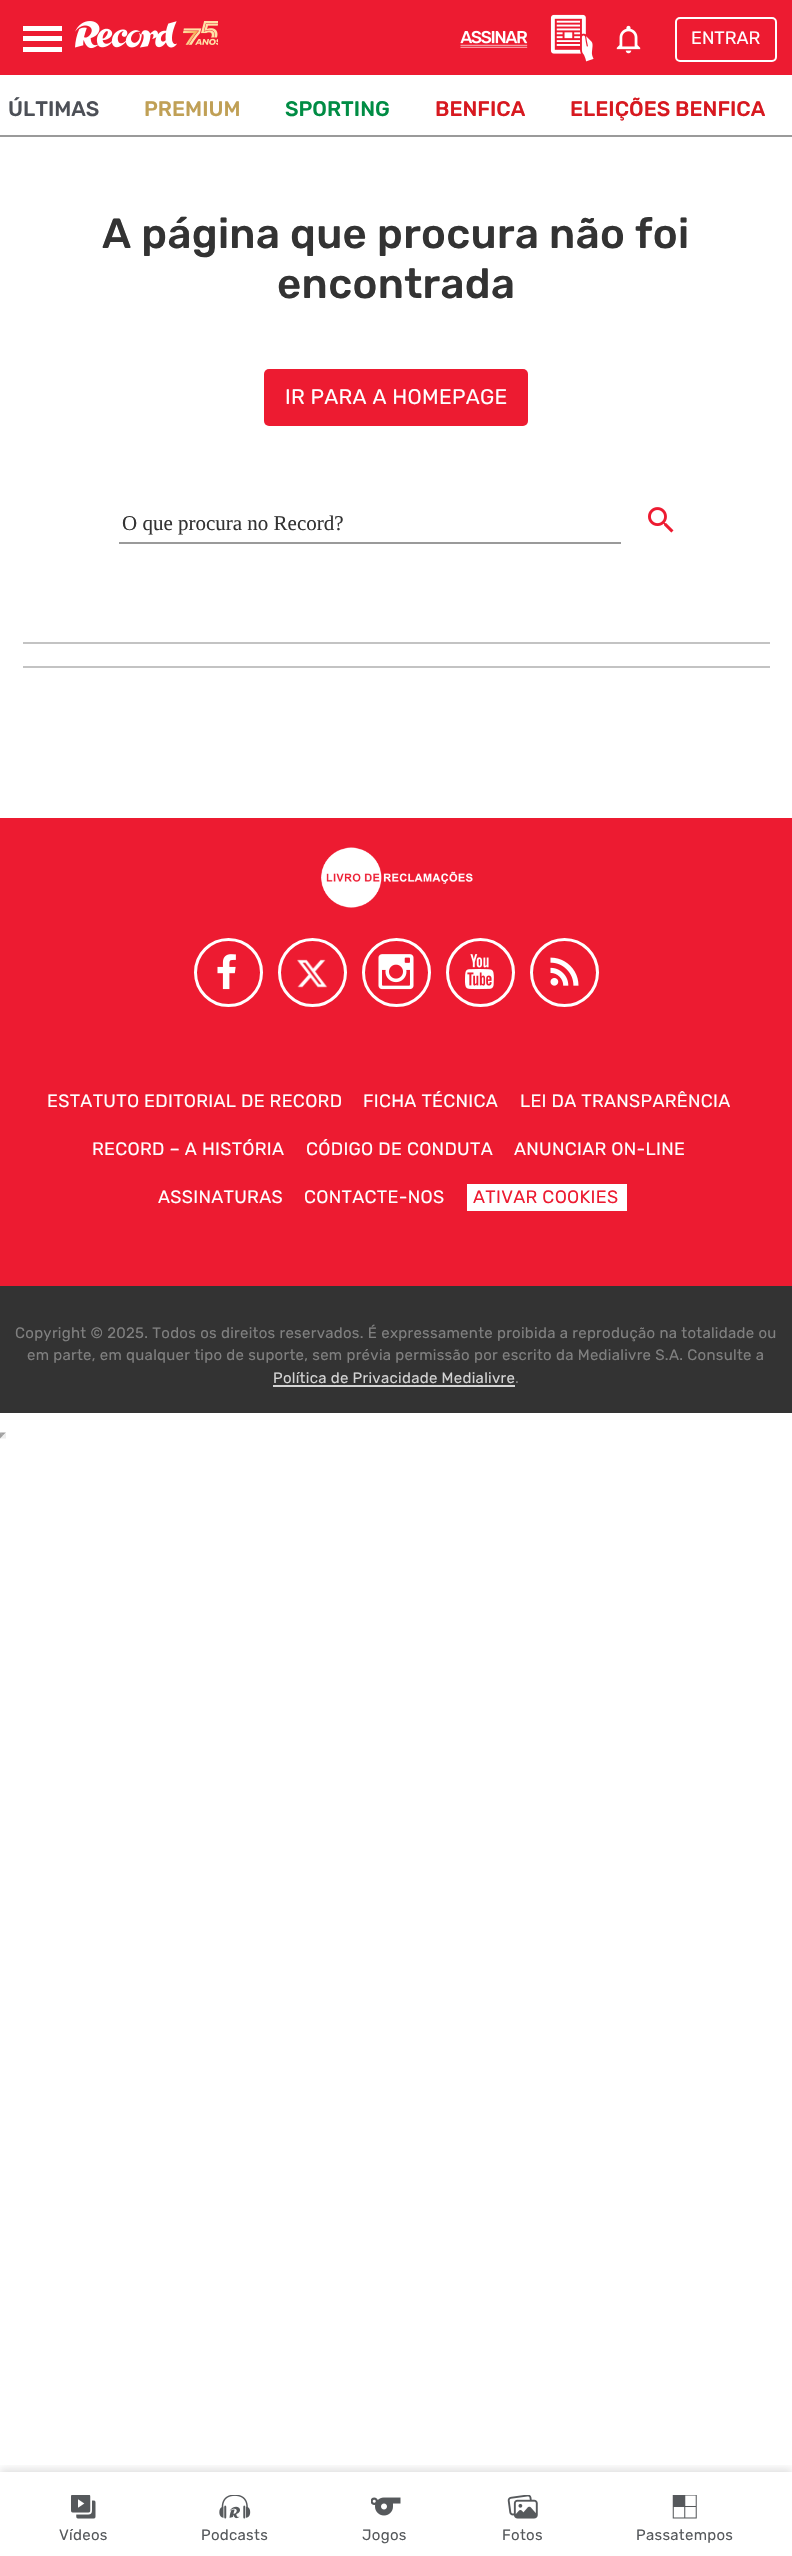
#include "include/core/SkBlurTypes.h"
#include "include/core/SkCanvas.h"
#include "include/core/SkData.h"
#include "include/core/SkFont.h"
#include "include/core/SkFontMgr.h"
#include "include/core/SkImage.h"
#include "include/core/SkMaskFilter.h"
#include "include/core/SkPaint.h"
#include "include/core/SkPathBuilder.h"
#include "include/core/SkTextBlob.h"
#include "include/effects/SkDashPathEffect.h"
#include "include/effects/SkGradientShader.h"
#include "include/utils/SkParsePath.h"

extern sk_sp<SkFontMgr> fontMgr;

static SkFont font(const char* family, int weight, float size, bool italic = false) {
    SkFontStyle style(weight, SkFontStyle::kNormal_Width,
        italic ? SkFontStyle::kItalic_Slant : SkFontStyle::kUpright_Slant);
    SkFont result(fontMgr->matchFamilyStyle(family, style), size);
    result.setSubpixel(true);
    return result;
}

static void drawLabel(SkCanvas* canvas, const char* s, float x, float y, const SkFont& font, SkColor color) {
    SkPaint ink(SkColor4f::FromColor(color));
    ink.setAntiAlias(true);
    canvas->drawString(s, x, y, font, ink);
}

static void drawTracked(SkCanvas* canvas, const char* s, float x, float y, const SkFont& font, const SkPaint& ink, float letter, float word) {
    std::vector<SkGlyphID> glyphs(font.countText(s, strlen(s), SkTextEncoding::kUTF8));
    std::vector<float> xs(glyphs.size());
    font.textToGlyphs(s, strlen(s), SkTextEncoding::kUTF8, glyphs);
    font.getXPos(glyphs, xs, x);
    float extra = 0;
    for (size_t i = 0; i < glyphs.size(); i++) {
        xs[i] += extra;
        extra += letter + word * (glyphs[i] == font.unicharToGlyph(' '));
    }
    canvas->drawTextBlob(SkTextBlob::MakeFromPosHGlyphs(glyphs, xs, y, font), 0, 0, ink);
}

static void fillRect(SkCanvas* canvas, float x, float y, float w, float h, SkColor color) {
    SkPaint ink(SkColor4f::FromColor(color));
    ink.setAntiAlias(true);
    canvas->drawRect(SkRect::MakeXYWH(x, y, w, h), ink);
}

static void fillRRect(SkCanvas* canvas, float x, float y, float w, float h, float radius, SkColor color) {
    SkPaint ink(SkColor4f::FromColor(color));
    ink.setAntiAlias(true);
    canvas->drawRoundRect(SkRect::MakeXYWH(x, y, w, h), radius, radius, ink);
}

static void drawPhoto(SkCanvas* canvas, const char* path, float x, float y, float w, float h) {
    auto image = SkImages::DeferredFromEncodedData(SkData::MakeFromFileName(path));
    canvas->drawImageRect(image, SkRect::MakeXYWH(x, y, w, h), SkSamplingOptions());
}

static SkPath parsePath(const char* data, bool evenOdd = false) {
    SkPath result = *SkParsePath::FromSVGString(data);
    if (evenOdd) result.setFillType(SkPathFillType::kEvenOdd);
    return result;
}

void draw(SkCanvas* canvas) {
    SkPaint paint;
    paint.setAntiAlias(true);
    canvas->clear(0xFFFFFFFF);
    fillRect(canvas, 0, 0, 792, 75, 0xFFED1B31);
    fillRect(canvas, 23, 36, 39, 5, 0xFFFFFFFF);
    fillRect(canvas, 23, 26, 39, 5, 0xFFFFFFFF);
    fillRect(canvas, 23, 47, 39, 5, 0xFFFFFFFF);
    drawPhoto(canvas, "assets/img1.png", 75, 21, 102, 28);
    drawPhoto(canvas, "assets/img2.png", 183, 21, 35, 24);
    drawPhoto(canvas, "assets/img3.png", 460, 30, 68, 18);
    drawPhoto(canvas, "assets/img4.png", 550, 14, 44, 48);
    drawPhoto(canvas, "assets/img5.png", 616, 25, 25, 29);
    paint.setStroke(true);
    paint.setStrokeWidth(2);
    paint.setColor(0xFFFFFFFF);
    canvas->drawRoundRect(SkRect::MakeXYWH(676, 18, 100, 43), 4, 4, paint);
    SkFont font1 = font("Rubik", 400, 18);
    drawLabel(canvas, "ENTRAR", 691, 44, font1, 0xFFFFFFFF);
    fillRect(canvas, 0, 135, 792, 2, 0xFF9A9A9A);
    SkFont font2 = font("Rubik", 500, 21);
    drawLabel(canvas, "ÚLTIMAS", 8, 116, font2, 0xFF4D5057);
    drawLabel(canvas, "PREMIUM", 144, 116, font2, 0xFFC0A056);
    drawLabel(canvas, "SPORTING", 285, 116, font2, 0xFF008C44);
    drawLabel(canvas, "BENFICA", 435, 116, font2, 0xFFD71920);
    drawLabel(canvas, "ELEIÇÕES BENFICA", 570, 116, font2, 0xFFD71920);
    SkFont font3 = font("Rubik", 500, 42);
    paint.setStroke(false);
    paint.setColor(0xFF333333);
    drawTracked(canvas, "A página que procura não foi", 102, 248, font3, paint, 0.3f, 0);
    drawTracked(canvas, "encontrada", 277, 298, font3, paint, 0.3f, 0);
    fillRRect(canvas, 264, 369, 264, 57, 5, 0xFFED1B31);
    SkFont font4 = font("Rubik", 400, 21);
    paint.setColor(0xFFFFFFFF);
    drawTracked(canvas, "IR PARA A HOMEPAGE", 285, 404, font4, paint, 0.3f, 0);
    fillRect(canvas, 119, 542, 502, 2, 0xFF9A9A9A);
    SkFont font5 = font("Liberation Serif", 400, 21);
    drawLabel(canvas, "O que procura no Record?", 122, 530, font5, 0xFF333333);
    drawPhoto(canvas, "assets/img6.png", 648, 507, 26, 26);
    fillRect(canvas, 23, 666, 747, 2, 0xFFC3C3C3);
    fillRect(canvas, 23, 642, 747, 2, 0xFFC3C3C3);
    fillRect(canvas, 0, 818, 792, 468, 0xFFED1B31);
    drawPhoto(canvas, "assets/img7.png", 321, 847, 152, 61);
    paint.setStroke(true);
    paint.setStrokeWidth(3);
    canvas->drawCircle(228.5f, 972.5f, 33, paint);
    drawPhoto(canvas, "assets/img8.png", 217, 954, 19, 36);
    canvas->drawCircle(312.5f, 972.5f, 33, paint);
    drawPhoto(canvas, "assets/img9.png", 297, 959, 31, 29);
    canvas->drawCircle(396.5f, 972.5f, 33, paint);
    drawPhoto(canvas, "assets/img10.png", 378, 954, 36, 36);
    canvas->drawCircle(480.5f, 972.5f, 33, paint);
    drawPhoto(canvas, "assets/img11.png", 465, 954, 29, 36);
    canvas->drawCircle(564.5f, 972.5f, 33, paint);
    drawPhoto(canvas, "assets/img12.png", 550, 957, 29, 29);
    paint.setStroke(false);
    drawTracked(canvas, "ESTATUTO EDITORIAL DE RECORD", 47, 1107, font1, paint, 0.3f, 0);
    drawTracked(canvas, "FICHA TÉCNICA", 363, 1107, font1, paint, 0.3f, 0);
    drawTracked(canvas, "LEI DA TRANSPARÊNCIA", 520, 1107, font1, paint, 0.3f, 0);
    drawTracked(canvas, "RECORD – A HISTÓRIA", 92, 1155, font1, paint, 0.3f, 0);
    drawTracked(canvas, "CÓDIGO DE CONDUTA", 306, 1155, font1, paint, 0.3f, 0);
    drawTracked(canvas, "ANUNCIAR ON-LINE", 514, 1155, font1, paint, 0.3f, 0);
    drawTracked(canvas, "ASSINATURAS", 158, 1203, font1, paint, 0.3f, 0);
    drawTracked(canvas, "CONTACTE-NOS", 304, 1203, font1, paint, 0.3f, 0);
    fillRect(canvas, 467, 1184, 160, 27, 0xFFFFFFFF);
    paint.setColor(0xFFED1B31);
    drawTracked(canvas, "ATIVAR COOKIES", 473, 1203, font1, paint, 0.3f, 0);
    fillRect(canvas, 0, 1286, 792, 127, 0xFF333333);
    SkFont font6 = font("Rubik", 400, 15);
    paint.setColor(0xFF808080);
    drawTracked(canvas, "Copyright © 2025. Todos os direitos reservados. É expressamente proibida a reprodução na totalidade ou", 15, 1338, font6, paint, 0.3f, 0);
    drawTracked(canvas, "em parte, em qualquer tipo de suporte, sem prévia permissão por escrito da Medialivre S.A. Consulte a", 27, 1360, font6, paint, 0.3f, 0);
    paint.setColor(0xFFD4D4D4);
    drawTracked(canvas, "Política de Privacidade Medialivre", 273, 1383, font6, paint, 0.3f, 0);
    fillRect(canvas, 273, 1385, 242, 2, 0xFFD4D4D4);
    paint.setColor(0xFF808080);
    drawTracked(canvas, ".", 515, 1383, font6, paint, 0.3f, 0);
    paint.setColor(0xFF9F9F9F);
    canvas->drawPath(parsePath("M0 1432.5H6L3 1435.5Z"), paint);
    paint.setColor(0xFFEEEEEE);
    canvas->drawPath(parsePath("M6 1432.5V1438.5L3 1435.5Z"), paint);
    canvas->drawPath(parsePath("M6 1438.5H0L3 1435.5Z"), paint);
    paint.setColor(0xFF9F9F9F);
    canvas->drawPath(parsePath("M0 1438.5V1432.5L3 1435.5Z"), paint);
    canvas->save();
    canvas->clipRect(SkRect::MakeXYWH(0, 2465, 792, 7));
    paint.setColor(0x1F000000);
    paint.setMaskFilter(SkMaskFilter::MakeBlur(kNormal_SkBlurStyle, 4));
    canvas->drawRect(SkRect::MakeXYWH(0, 2469, 792, 84), paint);
    paint.setMaskFilter(nullptr);
    canvas->restore();
    drawPhoto(canvas, "assets/img13.png", 71, 2495, 25, 24);
    paint.setColor(0xFF56595C);
    drawTracked(canvas, "Vídeos", 59, 2540, font6, paint, 0.3f, 0);
    drawPhoto(canvas, "assets/img14.png", 219, 2495, 32, 24);
    drawTracked(canvas, "Podcasts", 201, 2540, font6, paint, 0.3f, 0);
    drawPhoto(canvas, "assets/img15.png", 371, 2497, 30, 19);
    drawTracked(canvas, "Jogos", 362, 2540, font6, paint, 0.3f, 0);
    drawPhoto(canvas, "assets/img16.png", 507, 2495, 31, 24);
    drawTracked(canvas, "Fotos", 502, 2540, font6, paint, 0.3f, 0);
    drawPhoto(canvas, "assets/img17.png", 672, 2495, 25, 24);
    drawTracked(canvas, "Passatempos", 636, 2540, font6, paint, 0.3f, 0);
}
